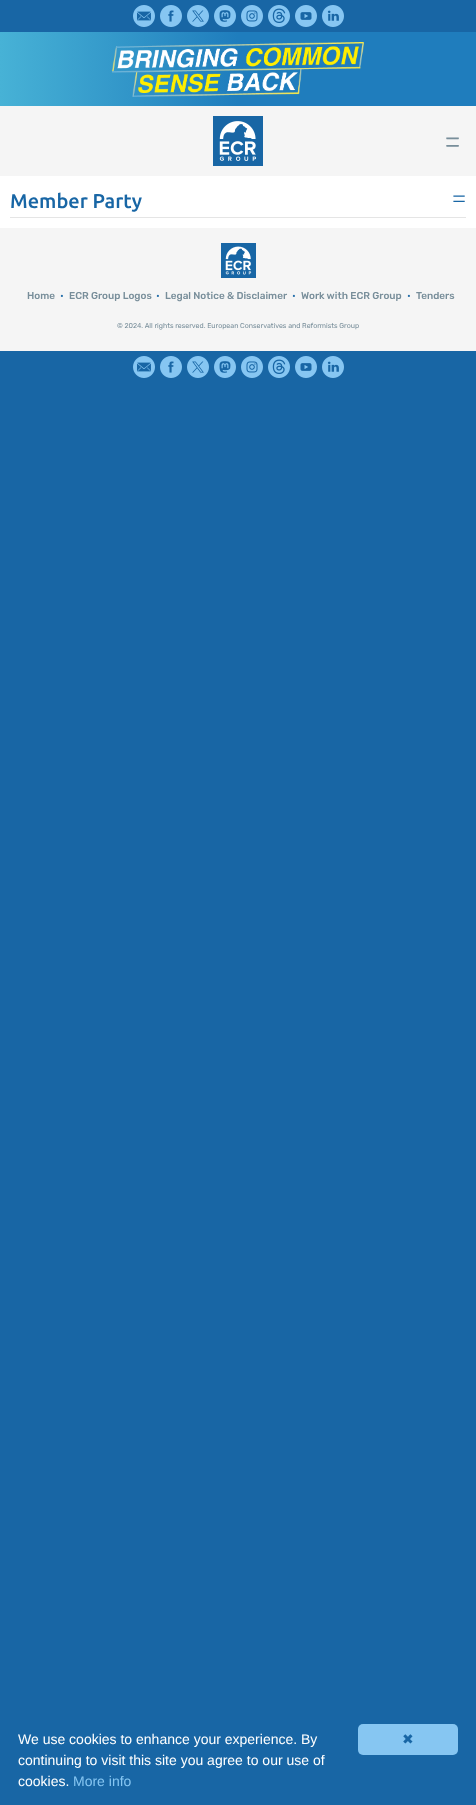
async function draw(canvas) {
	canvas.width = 476;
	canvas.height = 1805;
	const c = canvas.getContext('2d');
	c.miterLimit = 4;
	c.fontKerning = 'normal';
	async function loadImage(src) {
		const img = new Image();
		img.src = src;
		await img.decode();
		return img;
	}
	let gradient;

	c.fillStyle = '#1866a5';
	c.fillRect(0, 0, 476, 1805);
	c.drawImage(await loadImage('img1.png'), 133, 5, 22, 22);
	c.drawImage(await loadImage('img2.png'), 160, 5, 22, 22);
	c.drawImage(await loadImage('img3.png'), 187, 5, 22, 22);
	c.drawImage(await loadImage('img4.png'), 214, 5, 22, 22);
	c.drawImage(await loadImage('img5.png'), 241, 5, 22, 22);
	c.drawImage(await loadImage('img6.png'), 268, 5, 22, 22);
	c.drawImage(await loadImage('img7.png'), 295, 5, 22, 22);
	c.drawImage(await loadImage('img8.png'), 322, 5, 22, 22);
	gradient = c.createLinearGradient(0, 69, 476, 69);
	gradient.addColorStop(0, '#47b2d6');
	gradient.addColorStop(0.5, '#1f7dbd');
	c.fillStyle = gradient;
	c.fillRect(0, 32, 476, 74);
	c.drawImage(await loadImage('img9.png'), 112, 42, 252, 55);
	c.fillStyle = '#f5f5f5';
	c.fillRect(0, 106, 476, 70);
	c.drawImage(await loadImage('img10.png'), 213, 116, 50, 50);
	c.font = '300 30px Rubik';
	c.fillStyle = '#788e9a';
	c.fillText('=', 444, 151);
	c.fillStyle = '#fff';
	c.fillRect(0, 176, 476, 52);
	c.font = '500 20px Ubuntu';
	c.fillStyle = '#1866a5';
	c.fillText('Member Party', 10, 208);
	c.font = '300 25px Ubuntu';
	c.fillText('=', 452, 206);
	c.fillStyle = '#e5e5e5';
	c.fillRect(10, 217, 456, 1);
	c.fillStyle = '#f5f5f5';
	c.fillRect(0, 228, 476, 123);
	c.drawImage(await loadImage('img11.png'), 221, 243, 35, 35);
	c.font = '500 10px Rubik';
	c.fillStyle = '#788e9a';
	c.fillText('Home', 27, 299);
	c.font = '10px Rubik';
	c.fillStyle = '#1866a5';
	c.fillText('•', 60, 299);
	c.font = '500 10px Rubik';
	c.fillStyle = '#788e9a';
	c.fillText('ECR Group Logos', 69, 299);
	c.font = '10px Rubik';
	c.fillStyle = '#1866a5';
	c.fillText('•', 156, 299);
	c.font = '500 10px Rubik';
	c.fillStyle = '#788e9a';
	c.fillText('Legal Notice & Disclaimer', 165, 299);
	c.font = '10px Rubik';
	c.fillStyle = '#1866a5';
	c.fillText('•', 292, 299);
	c.font = '500 10px Rubik';
	c.fillStyle = '#788e9a';
	c.fillText('Work with ECR Group', 301, 299);
	c.font = '10px Rubik';
	c.fillStyle = '#1866a5';
	c.fillText('•', 407, 299);
	c.font = '500 10px Rubik';
	c.fillStyle = '#788e9a';
	c.fillText('Tenders', 416, 299);
	c.font = '7px Rubik';
	c.fillText('© 2024. All rights reserved. European Conservatives and Reformists Group', 117, 328);
	c.drawImage(await loadImage('img1.png'), 133, 356, 22, 22);
	c.drawImage(await loadImage('img2.png'), 160, 356, 22, 22);
	c.drawImage(await loadImage('img3.png'), 187, 356, 22, 22);
	c.drawImage(await loadImage('img4.png'), 214, 356, 22, 22);
	c.drawImage(await loadImage('img5.png'), 241, 356, 22, 22);
	c.drawImage(await loadImage('img6.png'), 268, 356, 22, 22);
	c.drawImage(await loadImage('img7.png'), 295, 356, 22, 22);
	c.drawImage(await loadImage('img8.png'), 322, 356, 22, 22);
	c.font = '14px Liberation Sans';
	c.fillStyle = '#fff';
	for (const [text, x, y] of [
		['We use cookies to enhance your experience. By', 18, 1744],
		['continuing to visit this site you agree to our use of', 18, 1765],
		['cookies.', 18, 1786],
	]) {
		c.fillText(text, x, y);
	}
	c.fillStyle = '#86c6f2';
	c.fillText('More info', 73, 1786);
	c.beginPath();
	c.roundRect(358, 1724, 100, 31, 5);
	c.fill();
	c.font = '14px DejaVu Sans';
	c.fillStyle = '#1866a5';
	c.fillText('✖', 402, 1744);
}

draw(document.querySelector('canvas'));
